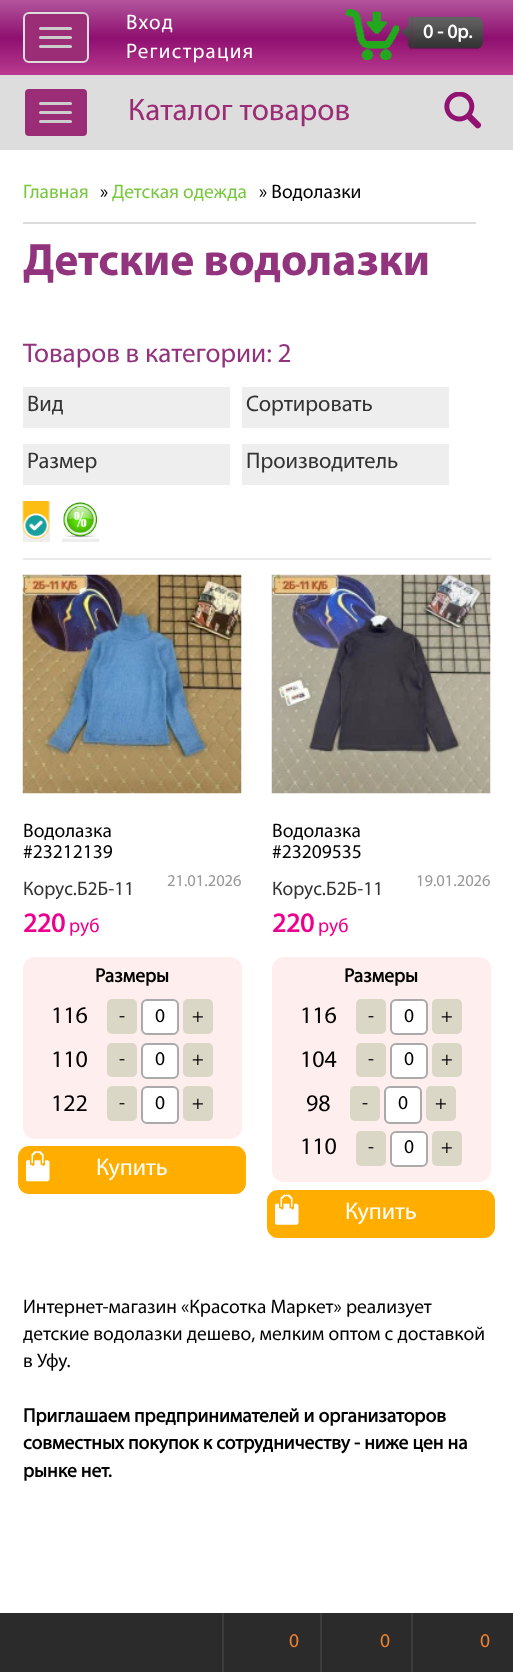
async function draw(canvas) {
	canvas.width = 513;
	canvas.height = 1672;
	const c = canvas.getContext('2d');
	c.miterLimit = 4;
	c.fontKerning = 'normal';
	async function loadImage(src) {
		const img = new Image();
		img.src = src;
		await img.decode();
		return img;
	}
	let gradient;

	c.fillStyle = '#fff';
	c.fillRect(0, 0, 513, 1672);
	gradient = c.createLinearGradient(257, 0, 257, 75);
	gradient.addColorStop(0, '#b2559c');
	gradient.addColorStop(0.51, '#8e0f6f');
	gradient.addColorStop(1, '#ba3b8f');
	c.fillStyle = gradient;
	c.fillRect(0, 0, 513, 75);
	c.fillStyle = '#9b2d76';
	c.beginPath();
	c.roundRect(24, 13, 64, 49, 5);
	c.fill();
	c.strokeStyle = '#ddd';
	c.lineWidth = 2;
	c.stroke();
	c.fillStyle = '#ccc';
	c.beginPath();
	c.roundRect(39, 27, 33, 3, 1.5);
	c.fill();
	c.beginPath();
	c.roundRect(39, 36, 33, 3, 1.5);
	c.fill();
	c.beginPath();
	c.roundRect(39, 45, 33, 3, 1.5);
	c.fill();
	c.letterSpacing = '1.25px';
	c.font = '21px Myriad';
	c.fillStyle = '#fff';
	c.fillText('Вход', 126, 29);
	c.fillText('Регистрация', 126, 58);
	c.drawImage(await loadImage('img1.png'), 345, 9, 68, 51);
	c.drawImage(await loadImage('img2.png'), 412, 16, 71, 34);
	c.letterSpacing = '0px';
	c.font = 'bold 19.5px Myriad';
	c.fillText('0 - 0р.', 423, 38);
	c.fillStyle = '#ddd';
	c.fillRect(0, 75, 513, 75);
	c.drawImage(await loadImage('img3.png'), 444, 92, 38, 37);
	c.fillStyle = '#9b2d76';
	c.beginPath();
	c.roundRect(24, 88, 64, 49, 5);
	c.fill();
	c.stroke();
	c.fillStyle = '#ccc';
	c.beginPath();
	c.roundRect(39, 102, 33, 3, 1.5);
	c.fill();
	c.beginPath();
	c.roundRect(39, 111, 33, 3, 1.5);
	c.fill();
	c.beginPath();
	c.roundRect(39, 120, 33, 3, 1.5);
	c.fill();
	c.font = '31.25px Myriad';
	c.fillStyle = '#9b2d76';
	c.fillText('Каталог товаров', 128, 120);
	c.fillStyle = '#eaeaea';
	c.fillRect(23, 558, 468, 2);
	c.fillStyle = '#ddd';
	c.fillRect(23, 222, 453, 2);
	c.font = '19.5px Myriad';
	c.fillStyle = '#77c83f';
	c.fillText('Главная', 23, 198);
	c.fillStyle = '#000';
	c.fillText('»', 100, 198);
	c.fillStyle = '#77c83f';
	c.fillText('Детская одежда', 112, 198);
	c.fillStyle = '#000';
	c.fillText('» Водолазки', 259, 198);
	c.font = 'bold 45.6px "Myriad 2"';
	c.fillStyle = '#91337d';
	c.fillText('Детские водолазки', 23, 275);
	c.font = '27.25px Myriad';
	c.fillText('Товаров в категории: 2', 23, 362);
	c.fillStyle = '#eee';
	c.fillRect(23, 387, 207, 41);
	c.font = '22.5px Myriad';
	c.fillStyle = '#333';
	c.fillText('Вид', 27, 411);
	c.fillStyle = '#eee';
	c.fillRect(242, 387, 207, 41);
	c.fillStyle = '#333';
	c.fillText('Сортировать', 246, 411);
	c.fillStyle = '#eee';
	c.fillRect(23, 444, 207, 41);
	c.fillStyle = '#333';
	c.fillText('Размер', 27, 468);
	c.fillStyle = '#eee';
	c.fillRect(242, 444, 207, 41);
	c.fillStyle = '#333';
	c.fillText('Производитель', 246, 468);
	c.fillStyle = '#eee';
	c.fillRect(23, 501, 27, 41);
	c.drawImage(await loadImage('img4.png'), 22, 501, 28, 38);
	c.fillRect(62, 538, 37, 4);
	c.drawImage(await loadImage('img5.png'), 62, 501, 37, 38);
	c.drawImage(await loadImage('img6.png'), 22, 574, 220, 220);
	c.font = '19.5px Myriad';
	c.fillStyle = '#000';
	c.fillText('Водолазка', 23, 837);
	c.fillText('#23212139', 23, 858);
	c.fillStyle = '#333';
	c.fillText('Корус.Б2Б-11', 23, 895);
	c.font = '16.5px Myriad';
	c.fillStyle = '#999';
	c.fillText('21.01.2026', 167, 886);
	c.font = 'bold 27.25px Myriad';
	c.fillStyle = '#ed008e';
	c.fillText('220', 23, 932);
	c.font = '19.5px Myriad';
	c.fillText('руб', 69, 932);
	c.fillStyle = '#fee';
	c.beginPath();
	c.roundRect(23, 957, 219, 182, 12);
	c.fill();
	c.font = 'bold 19.5px Myriad';
	c.fillStyle = '#000';
	c.fillText('Размеры', 95, 982);
	c.font = '24px Myriad';
	c.fillText('116', 51, 1023);
	c.fillStyle = '#dbd7c7';
	c.beginPath();
	c.roundRect(107, 999, 30, 35, 5);
	c.fill();
	c.font = '19.5px Myriad';
	c.fillStyle = '#000';
	c.fillText('-', 119, 1022);
	c.fillStyle = '#fff';
	c.beginPath();
	c.roundRect(142, 1000, 36, 34, 5);
	c.fill();
	c.strokeStyle = '#aaa';
	c.stroke();
	c.fillStyle = '#000';
	c.fillText('0', 155, 1022);
	c.fillStyle = '#dbd7c7';
	c.beginPath();
	c.roundRect(183, 999, 30, 35, 5);
	c.fill();
	c.fillStyle = '#000';
	c.fillText('+', 192, 1022);
	c.font = '24px Myriad';
	c.fillText('110', 51, 1067);
	c.fillStyle = '#dbd7c7';
	c.beginPath();
	c.roundRect(107, 1043, 30, 34, 5);
	c.fill();
	c.font = '19.5px Myriad';
	c.fillStyle = '#000';
	c.fillText('-', 119, 1065);
	c.fillStyle = '#fff';
	c.beginPath();
	c.roundRect(142, 1044, 36, 34, 5);
	c.fill();
	c.stroke();
	c.fillStyle = '#000';
	c.fillText('0', 155, 1065);
	c.fillStyle = '#dbd7c7';
	c.beginPath();
	c.roundRect(183, 1043, 30, 34, 5);
	c.fill();
	c.fillStyle = '#000';
	c.fillText('+', 192, 1065);
	c.font = '24px Myriad';
	c.fillText('122', 51, 1111);
	c.fillStyle = '#dbd7c7';
	c.beginPath();
	c.roundRect(107, 1086, 30, 35, 5);
	c.fill();
	c.font = '19.5px Myriad';
	c.fillStyle = '#000';
	c.fillText('-', 119, 1109);
	c.fillStyle = '#fff';
	c.beginPath();
	c.roundRect(142, 1087, 36, 36, 5);
	c.fill();
	c.stroke();
	c.fillStyle = '#000';
	c.fillText('0', 155, 1109);
	c.fillStyle = '#dbd7c7';
	c.beginPath();
	c.roundRect(183, 1086, 30, 35, 5);
	c.fill();
	c.fillStyle = '#000';
	c.fillText('+', 192, 1109);
	c.fillStyle = '#ffae00';
	c.beginPath();
	c.roundRect(18, 1146, 228, 48, 11);
	c.fill();
	c.drawImage(await loadImage('img7.png'), 26, 1151, 24, 31);
	c.font = '24px Myriad';
	c.fillStyle = '#fff';
	c.fillText('Купить', 96, 1175);
	c.drawImage(await loadImage('img8.png'), 271, 574, 220, 220);
	c.font = '19.5px Myriad';
	c.fillStyle = '#000';
	c.fillText('Водолазка', 272, 837);
	c.fillText('#23209535', 272, 858);
	c.fillStyle = '#333';
	c.fillText('Корус.Б2Б-11', 272, 895);
	c.font = '16.5px Myriad';
	c.fillStyle = '#999';
	c.fillText('19.01.2026', 416, 886);
	c.font = 'bold 27.25px Myriad';
	c.fillStyle = '#ed008e';
	c.fillText('220', 272, 932);
	c.font = '19.5px Myriad';
	c.fillText('руб', 318, 932);
	c.fillStyle = '#fee';
	c.beginPath();
	c.roundRect(272, 957, 219, 225, 12);
	c.fill();
	c.font = 'bold 19.5px Myriad';
	c.fillStyle = '#000';
	c.fillText('Размеры', 344, 982);
	c.font = '24px Myriad';
	c.fillText('116', 300, 1023);
	c.fillStyle = '#dbd7c7';
	c.beginPath();
	c.roundRect(356, 999, 30, 35, 5);
	c.fill();
	c.font = '19.5px Myriad';
	c.fillStyle = '#000';
	c.fillText('-', 368, 1022);
	c.fillStyle = '#fff';
	c.beginPath();
	c.roundRect(391, 1000, 36, 34, 5);
	c.fill();
	c.stroke();
	c.fillStyle = '#000';
	c.fillText('0', 404, 1022);
	c.fillStyle = '#dbd7c7';
	c.beginPath();
	c.roundRect(432, 999, 30, 35, 5);
	c.fill();
	c.fillStyle = '#000';
	c.fillText('+', 441, 1022);
	c.font = '24px Myriad';
	c.fillText('104', 300, 1067);
	c.fillStyle = '#dbd7c7';
	c.beginPath();
	c.roundRect(356, 1043, 30, 34, 5);
	c.fill();
	c.font = '19.5px Myriad';
	c.fillStyle = '#000';
	c.fillText('-', 368, 1065);
	c.fillStyle = '#fff';
	c.beginPath();
	c.roundRect(391, 1044, 36, 34, 5);
	c.fill();
	c.stroke();
	c.fillStyle = '#000';
	c.fillText('0', 404, 1065);
	c.fillStyle = '#dbd7c7';
	c.beginPath();
	c.roundRect(432, 1043, 30, 34, 5);
	c.fill();
	c.fillStyle = '#000';
	c.fillText('+', 441, 1065);
	c.font = '24px Myriad';
	c.fillText('98', 306, 1111);
	c.fillStyle = '#dbd7c7';
	c.beginPath();
	c.roundRect(350, 1086, 30, 35, 5);
	c.fill();
	c.font = '19.5px Myriad';
	c.fillStyle = '#000';
	c.fillText('-', 362, 1109);
	c.fillStyle = '#fff';
	c.beginPath();
	c.roundRect(385, 1087, 36, 36, 5);
	c.fill();
	c.stroke();
	c.fillStyle = '#000';
	c.fillText('0', 398, 1109);
	c.fillStyle = '#dbd7c7';
	c.beginPath();
	c.roundRect(426, 1086, 30, 35, 5);
	c.fill();
	c.fillStyle = '#000';
	c.fillText('+', 435, 1109);
	c.font = '24px Myriad';
	c.fillText('110', 300, 1154);
	c.fillStyle = '#dbd7c7';
	c.beginPath();
	c.roundRect(356, 1131, 30, 35, 5);
	c.fill();
	c.font = '19.5px Myriad';
	c.fillStyle = '#000';
	c.fillText('-', 368, 1153);
	c.fillStyle = '#fff';
	c.beginPath();
	c.roundRect(391, 1132, 36, 34, 5);
	c.fill();
	c.stroke();
	c.fillStyle = '#000';
	c.fillText('0', 404, 1153);
	c.fillStyle = '#dbd7c7';
	c.beginPath();
	c.roundRect(432, 1131, 30, 35, 5);
	c.fill();
	c.fillStyle = '#000';
	c.fillText('+', 441, 1153);
	c.fillStyle = '#ffae00';
	c.beginPath();
	c.roundRect(267, 1190, 228, 48, 11);
	c.fill();
	c.drawImage(await loadImage('img9.png'), 275, 1194, 24, 31);
	c.font = '24px Myriad';
	c.fillStyle = '#fff';
	c.fillText('Купить', 345, 1219);
	c.font = '19.5px Myriad';
	c.fillStyle = '#000';
	for (const [text, x, y] of [
		['Интернет-магазин «Красотка Маркет» реализует', 23, 1313],
		['детские водолазки дешево, мелким оптом с доставкой', 23, 1340],
		['в Уфу.', 23, 1367],
	]) {
		c.fillText(text, x, y);
	}
	c.font = 'bold 19.5px Myriad';
	for (const [text, x, y] of [
		['Приглашаем предпринимателей и организаторов', 23, 1422],
		['совместных покупок к сотрудничеству - ниже цен на', 23, 1449],
		['рынке нет.', 23, 1477],
	]) {
		c.fillText(text, x, y);
	}
	c.fillStyle = '#2b2b2b';
	c.fillRect(0, 1613, 513, 59);
	c.fillStyle = '#3c3c3c';
	c.fillRect(222, 1613, 2, 59);
	c.font = '19.5px Myriad';
	c.fillStyle = '#ee8131';
	c.fillText('0', 289, 1647);
	c.fillStyle = '#3c3c3c';
	c.fillRect(320, 1613, 2, 59);
	c.fillStyle = '#ee8131';
	c.fillText('0', 380, 1647);
	c.fillStyle = '#3c3c3c';
	c.fillRect(411, 1613, 2, 59);
	c.fillStyle = '#ee8131';
	c.fillText('0', 480, 1647);
}

draw(document.querySelector('canvas'));
